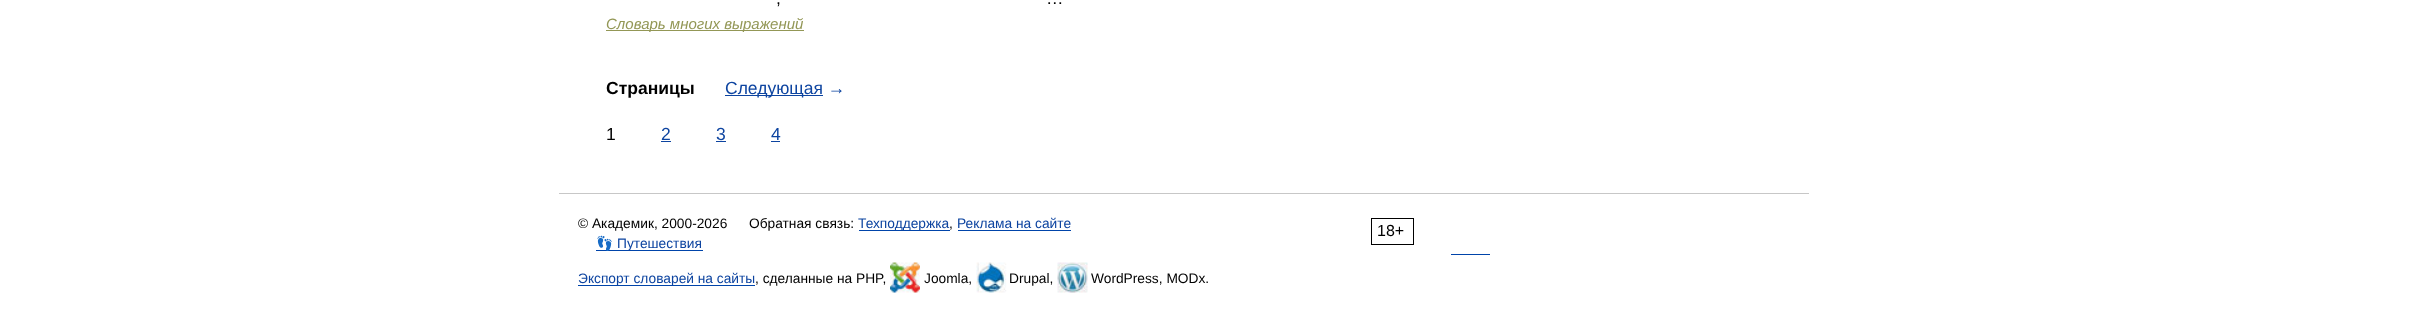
async function draw(canvas) {
	canvas.width = 2429;
	canvas.height = 325;
	const c = canvas.getContext('2d');
	c.miterLimit = 4;
	c.fontKerning = 'normal';
	async function loadImage(src) {
		const img = new Image();
		img.src = src;
		await img.decode();
		return img;
	}

	c.fillStyle = '#fff';
	c.fillRect(0, 0, 2429, 325);
	c.font = '17.5px Liberation Sans';
	c.fillStyle = '#000';
	c.fillText(',', 776, 4);
	c.fillText('…', 1046, 4);
	c.fillStyle = '#939756';
	c.fillRect(606, 30, 198, 1);
	c.font = 'italic 15px Liberation Sans';
	c.fillText('Словарь многих выражений', 606, 29);
	c.font = 'bold 17.5px Liberation Sans';
	c.fillStyle = '#000';
	c.fillText('Страницы', 606, 94);
	c.fillStyle = '#0d44a0';
	c.fillRect(725, 95, 98, 1);
	c.font = '17.5px Liberation Sans';
	c.fillText('Следующая →', 725, 94);
	c.fillStyle = '#000';
	c.fillText('1', 606, 140);
	c.fillStyle = '#0d44a0';
	c.fillText('2', 661, 140);
	c.fillRect(661, 141, 10, 1);
	c.fillText('3', 716, 140);
	c.fillRect(716, 141, 10, 1);
	c.fillText('4', 771, 140);
	c.fillRect(771, 141, 9, 1);
	c.fillStyle = '#c7c7c7';
	c.fillRect(559, 193, 1250, 1);
	c.font = '13.75px Liberation Sans';
	c.fillStyle = '#000';
	c.fillText('© Академик, 2000-2026', 578, 228);
	c.fillText('Обратная связь:', 749, 228);
	c.fillStyle = '#04a';
	c.fillRect(859, 230, 91, 1);
	c.fillStyle = '#0d44a0';
	c.fillText('Техподдержка', 858, 228);
	c.fillStyle = '#000';
	c.fillText(',', 949, 228);
	c.fillStyle = '#04a';
	c.fillRect(958, 230, 113, 1);
	c.fillStyle = '#0d44a0';
	c.fillText('Реклама на сайте', 957, 228);
	c.strokeStyle = '#000';
	c.strokeRect(1371.5, 218.5, 42, 26);
	c.font = '16px Liberation Sans';
	c.fillStyle = '#000';
	c.fillText('18+', 1377, 236);
	c.fillStyle = '#04a';
	c.fillRect(596, 250, 107, 1);
	c.font = '13.75px Noto Color Emoji';
	c.fillStyle = '#0d44a0';
	c.fillText('👣', 596, 248);
	c.font = '13.75px Liberation Sans';
	c.fillText('Путешествия', 617, 248);
	c.fillStyle = '#04a';
	c.fillRect(1451, 254, 39, 1);
	c.fillRect(578, 285, 177, 1);
	c.fillStyle = '#0d44a0';
	c.fillText('Экспорт словарей на сайты', 578, 283);
	c.fillStyle = '#000';
	c.fillText(', сделанные на PHP,', 755, 283);
	c.drawImage(await loadImage('img1.png'), 890, 262, 30, 31);
	c.fillText('Joomla,', 924, 283);
	c.drawImage(await loadImage('img2.png'), 976, 262, 31, 31);
	c.fillText('Drupal,', 1009, 283);
	c.drawImage(await loadImage('img3.png'), 1057, 262, 31, 31);
	c.fillText('WordPress, MODx.', 1091, 283);
}

draw(document.querySelector('canvas'));
